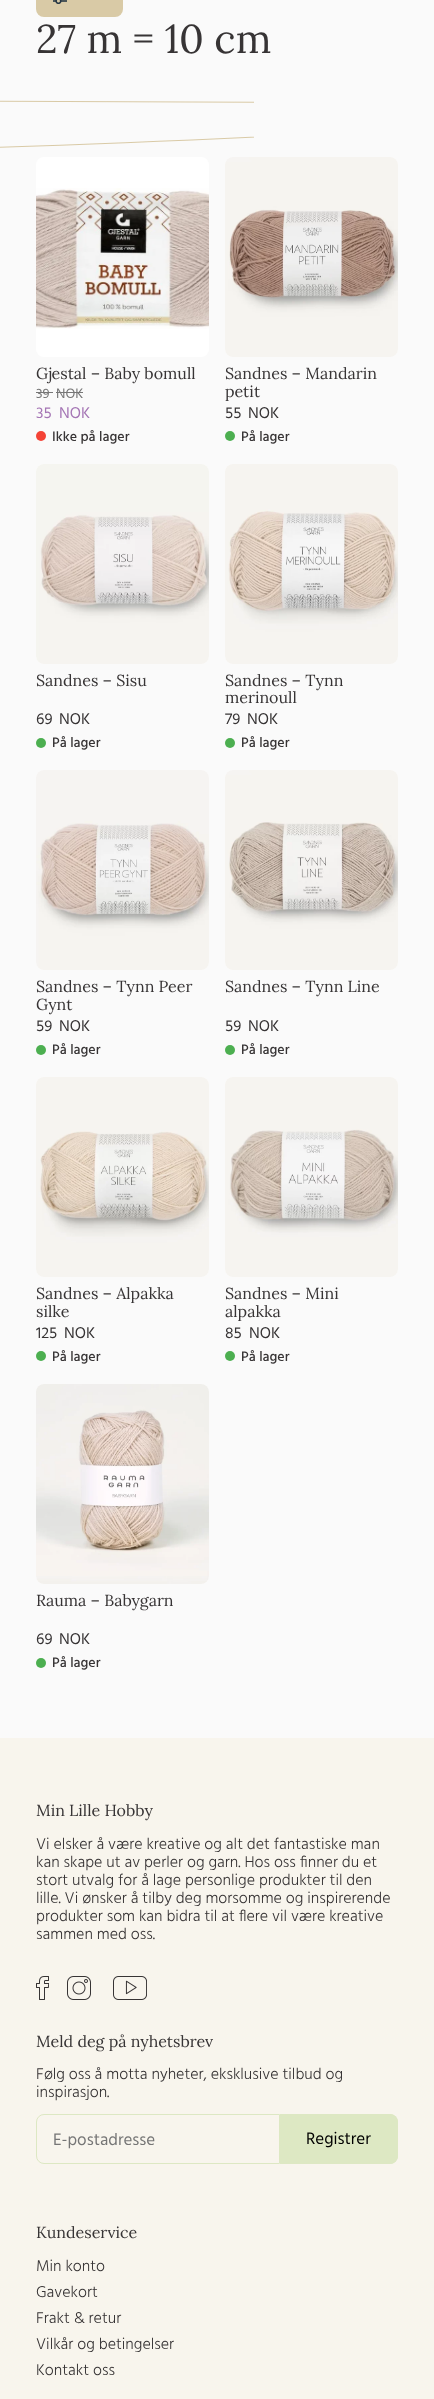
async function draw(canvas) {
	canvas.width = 434;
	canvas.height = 2399;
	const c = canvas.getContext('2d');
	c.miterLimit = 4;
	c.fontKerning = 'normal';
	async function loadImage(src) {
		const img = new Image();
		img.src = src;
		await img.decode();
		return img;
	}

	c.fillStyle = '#fafafa';
	c.fillRect(0, 0, 434, 2399);
	c.fillStyle = '#d9caa6';
	c.beginPath();
	c.roundRect(36, -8, 87, 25, 8);
	c.fill();
	c.drawImage(await loadImage('img1.png'), 53, 0, 14, 4);
	c.font = '40px Lora';
	c.fillStyle = '#373435';
	c.fillText('27 m = 10 cm', 36, 53);
	c.drawImage(await loadImage('img2.png'), 0, 100, 254, 48);
	c.fillStyle = '#fff';
	c.beginPath();
	c.roundRect(36, 157, 173, 200, 8);
	c.fill();
	c.drawImage(await loadImage('img3.png'), 36, 188, 173, 141);
	c.font = '16px Lora';
	c.fillStyle = '#373435';
	c.fillText('Gjestal – Baby bomull', 36, 379);
	c.font = '14px Hind';
	c.fillStyle = '#767676';
	c.fillText('39', 36, 398);
	c.fillRect(36, 392, 17, 1);
	c.fillText('NOK', 56, 398);
	c.fillRect(56, 392, 27, 1);
	c.font = '16px Hind';
	c.fillStyle = '#a576b5';
	c.fillText('35', 36, 418);
	c.fillText('NOK', 59, 418);
	c.fillStyle = '#f44336';
	c.beginPath();
	c.arc(41, 436, 5, 0, 2 * Math.PI);
	c.fill();
	c.font = '500 14px Hind';
	c.fillStyle = '#373435';
	c.fillText('Ikke på lager', 52, 441);
	c.fillStyle = '#fff';
	c.beginPath();
	c.roundRect(225, 157, 173, 200, 8);
	c.fill();
	c.drawImage(await loadImage('img4.png'), 225, 157, 173, 200);
	c.font = '16px Lora';
	c.fillStyle = '#373435';
	c.fillText('Sandnes – Mandarin', 225, 379);
	c.fillText('petit', 225, 397);
	c.font = '16px Hind';
	c.fillText('55', 225, 418);
	c.fillText('NOK', 248, 418);
	c.fillStyle = '#4caf50';
	c.beginPath();
	c.arc(230, 436, 5, 0, 2 * Math.PI);
	c.fill();
	c.font = '500 14px Hind';
	c.fillStyle = '#373435';
	c.fillText('På lager', 241, 441);
	c.fillStyle = '#fff';
	c.beginPath();
	c.roundRect(36, 464, 173, 200, 8);
	c.fill();
	c.drawImage(await loadImage('img5.png'), 36, 464, 173, 200);
	c.font = '16px Lora';
	c.fillStyle = '#373435';
	c.fillText('Sandnes – Sisu', 36, 686);
	c.font = '16px Hind';
	c.fillText('69', 36, 724);
	c.fillText('NOK', 59, 724);
	c.fillStyle = '#4caf50';
	c.beginPath();
	c.arc(41, 743, 5, 0, 2 * Math.PI);
	c.fill();
	c.font = '500 14px Hind';
	c.fillStyle = '#373435';
	c.fillText('På lager', 52, 747);
	c.fillStyle = '#fff';
	c.beginPath();
	c.roundRect(225, 464, 173, 200, 8);
	c.fill();
	c.drawImage(await loadImage('img6.png'), 225, 464, 173, 200);
	c.font = '16px Lora';
	c.fillStyle = '#373435';
	c.fillText('Sandnes – Tynn', 225, 686);
	c.fillText('merinoull', 225, 703);
	c.font = '16px Hind';
	c.fillText('79', 225, 724);
	c.fillText('NOK', 247, 724);
	c.fillStyle = '#4caf50';
	c.beginPath();
	c.arc(230, 743, 5, 0, 2 * Math.PI);
	c.fill();
	c.font = '500 14px Hind';
	c.fillStyle = '#373435';
	c.fillText('På lager', 241, 747);
	c.fillStyle = '#fff';
	c.beginPath();
	c.roundRect(36, 770, 173, 200, 8);
	c.fill();
	c.drawImage(await loadImage('img7.png'), 36, 770, 173, 200);
	c.font = '16px Lora';
	c.fillStyle = '#373435';
	c.fillText('Sandnes – Tynn Peer', 36, 992);
	c.fillText('Gynt', 36, 1010);
	c.font = '16px Hind';
	c.fillText('59', 36, 1031);
	c.fillText('NOK', 59, 1031);
	c.fillStyle = '#4caf50';
	c.beginPath();
	c.arc(41, 1050, 5, 0, 2 * Math.PI);
	c.fill();
	c.font = '500 14px Hind';
	c.fillStyle = '#373435';
	c.fillText('På lager', 52, 1054);
	c.fillStyle = '#fff';
	c.beginPath();
	c.roundRect(225, 770, 173, 200, 8);
	c.fill();
	c.drawImage(await loadImage('img8.png'), 225, 770, 173, 200);
	c.font = '16px Lora';
	c.fillStyle = '#373435';
	c.fillText('Sandnes – Tynn Line', 225, 992);
	c.font = '16px Hind';
	c.fillText('59', 225, 1031);
	c.fillText('NOK', 248, 1031);
	c.fillStyle = '#4caf50';
	c.beginPath();
	c.arc(230, 1050, 5, 0, 2 * Math.PI);
	c.fill();
	c.font = '500 14px Hind';
	c.fillStyle = '#373435';
	c.fillText('På lager', 241, 1054);
	c.fillStyle = '#fff';
	c.beginPath();
	c.roundRect(36, 1077, 173, 200, 8);
	c.fill();
	c.drawImage(await loadImage('img9.png'), 36, 1077, 173, 200);
	c.font = '16px Lora';
	c.fillStyle = '#373435';
	c.fillText('Sandnes – Alpakka', 36, 1299);
	c.fillText('silke', 36, 1317);
	c.font = '16px Hind';
	c.fillText('125', 36, 1338);
	c.fillText('NOK', 64, 1338);
	c.fillStyle = '#4caf50';
	c.beginPath();
	c.arc(41, 1356, 5, 0, 2 * Math.PI);
	c.fill();
	c.font = '500 14px Hind';
	c.fillStyle = '#373435';
	c.fillText('På lager', 52, 1361);
	c.fillStyle = '#fff';
	c.beginPath();
	c.roundRect(225, 1077, 173, 200, 8);
	c.fill();
	c.drawImage(await loadImage('img10.png'), 225, 1077, 173, 200);
	c.font = '16px Lora';
	c.fillStyle = '#373435';
	c.fillText('Sandnes – Mini', 225, 1299);
	c.fillText('alpakka', 225, 1317);
	c.font = '16px Hind';
	c.fillText('85', 225, 1338);
	c.fillText('NOK', 249, 1338);
	c.fillStyle = '#4caf50';
	c.beginPath();
	c.arc(230, 1356, 5, 0, 2 * Math.PI);
	c.fill();
	c.font = '500 14px Hind';
	c.fillStyle = '#373435';
	c.fillText('På lager', 241, 1361);
	c.fillStyle = '#fff';
	c.beginPath();
	c.roundRect(36, 1384, 173, 200, 8);
	c.fill();
	c.drawImage(await loadImage('img11.png'), 36, 1384, 173, 200);
	c.font = '16px Lora';
	c.fillStyle = '#373435';
	c.fillText('Rauma – Babygarn', 36, 1606);
	c.font = '16px Hind';
	c.fillText('69', 36, 1644);
	c.fillText('NOK', 59, 1644);
	c.fillStyle = '#4caf50';
	c.beginPath();
	c.arc(41, 1663, 5, 0, 2 * Math.PI);
	c.fill();
	c.font = '500 14px Hind';
	c.fillStyle = '#373435';
	c.fillText('På lager', 52, 1667);
	c.fillStyle = '#f8f5ed';
	c.fillRect(0, 1738, 434, 661);
	c.font = '16px Lora';
	c.fillStyle = '#373435';
	c.fillText('Min Lille Hobby', 36, 1816);
	c.font = '300 16px Hind';
	for (const [text, x, y] of [
		['Vi elsker å være kreative og alt det fantastiske man', 36, 1849],
		['kan skape ut av perler og garn. Hos oss finner du et', 36, 1867],
		['stort utvalg for å lage personlige produkter til den', 36, 1885],
		['lille. Vi ønsker å tilby deg morsomme og inspirerende', 36, 1903],
		['produkter som kan bidra til at flere vil være kreative', 36, 1921],
		['sammen med oss.', 36, 1939],
	]) {
		c.fillText(text, x, y);
	}
	c.drawImage(await loadImage('img12.png'), 36, 1976, 13, 24);
	c.drawImage(await loadImage('img13.png'), 67, 1976, 24, 24);
	c.drawImage(await loadImage('img14.png'), 113, 1976, 34, 24);
	c.font = '16px Lora';
	c.fillText('Meld deg på nyhetsbrev', 36, 2047);
	c.font = '300 16px Hind';
	c.fillText('Følg oss å motta nyheter, eksklusive tilbud og', 36, 2079);
	c.fillText('inspirasjon.', 36, 2097);
	c.beginPath();
	c.roundRect(36.5, 2114.5, 243, 49, [7.5, 0, 0, 7.5]);
	c.strokeStyle = '#dde8c3';
	c.stroke();
	c.font = '17px Hind';
	c.fillStyle = '#767676';
	c.fillText('E-postadresse', 53, 2145);
	c.fillStyle = '#dde8c3';
	c.beginPath();
	c.roundRect(280, 2114, 118, 50, [0, 8, 8, 0]);
	c.fill();
	c.beginPath();
	c.moveTo(280, 2114);
	c.lineTo(390, 2114);
	c.bezierCurveTo(394, 2114, 398, 2118, 398, 2122);
	c.lineTo(398, 2156);
	c.bezierCurveTo(398, 2160, 394, 2164, 390, 2164);
	c.lineTo(280, 2164);
	c.closePath();
	c.moveTo(280, 2115);
	c.lineTo(390, 2115);
	c.bezierCurveTo(394, 2115, 397, 2118, 397, 2122);
	c.lineTo(397, 2156);
	c.bezierCurveTo(397, 2160, 394, 2163, 390, 2163);
	c.lineTo(280, 2163);
	c.closePath();
	c.fill('evenodd');
	c.fillStyle = '#000';
	c.fillText('Registrer', 306, 2144);
	c.font = '16px Lora';
	c.fillStyle = '#373435';
	c.fillText('Kundeservice', 36, 2238);
	c.font = '300 16px Hind';
	for (const [text, x, y] of [
		['Min konto', 36, 2271],
		['Gavekort', 36, 2297],
		['Frakt & retur', 36, 2323],
		['Vilkår og betingelser', 36, 2349],
		['Kontakt oss', 36, 2375],
	]) {
		c.fillText(text, x, y);
	}
}

draw(document.querySelector('canvas'));
